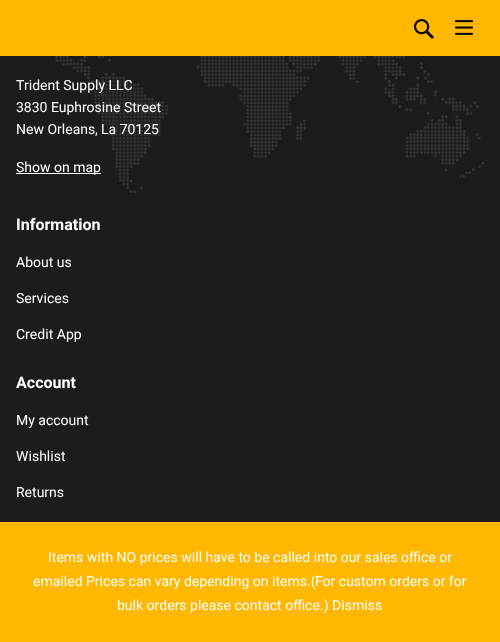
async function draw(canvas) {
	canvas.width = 500;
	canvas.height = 642;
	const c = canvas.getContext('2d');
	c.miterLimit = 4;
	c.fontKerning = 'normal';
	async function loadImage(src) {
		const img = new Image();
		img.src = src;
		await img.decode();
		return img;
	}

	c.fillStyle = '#1c1c1e';
	c.fillRect(0, 0, 500, 642);
	c.fillStyle = '#ffb700';
	c.fillRect(0, 0, 500, 56);
	c.drawImage(await loadImage('img1.png'), 414, 19, 20, 20);
	c.drawImage(await loadImage('img2.png'), 455, 20, 18, 15);
	c.drawImage(await loadImage('img3.png'), 38, 56, 446, 137);
	c.font = '14px Heebo';
	c.fillStyle = '#fff';
	for (const [text, x, y] of [
		['Trident Supply LLC', 16, 90],
		['3830 Euphrosine Street', 16, 112],
		['New Orleans', 16, 134],
	]) {
		c.fillText(text, x, y);
	}
	c.font = '14px "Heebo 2"';
	c.fillText(',', 95, 134);
	c.font = '14px Heebo';
	c.fillText('La 70125', 101, 134);
	c.fillRect(16, 173, 85, 1);
	c.fillText('Show on map', 16, 172);
	c.font = 'bold 16px Heebo';
	c.fillText('Information', 16, 230);
	c.font = '14px Heebo';
	for (const [text, x, y] of [
		['About us', 16, 267],
		['Services', 16, 303],
		['Credit App', 16, 339],
	]) {
		c.fillText(text, x, y);
	}
	c.font = 'bold 16px Heebo';
	c.fillText('Account', 16, 388);
	c.font = '14px Heebo';
	for (const [text, x, y] of [
		['My account', 16, 425],
		['Wishlist', 16, 461],
		['Returns', 16, 497],
	]) {
		c.fillText(text, x, y);
	}
	c.fillStyle = '#ffb700';
	c.fillRect(0, 522, 500, 120);
	c.fillStyle = '#fff';
	c.fillText('Items with NO prices will have to be called into our sales office or', 48, 562);
	c.fillText('emailed Prices can vary depending on items', 33, 586);
	c.font = '14px "Heebo 2"';
	c.fillText('.(', 307, 586);
	c.font = '14px Heebo';
	c.fillText('For custom orders or for', 315, 586);
	c.fillText('bulk orders please contact office', 117, 610);
	c.font = '14px "Heebo 2"';
	c.fillText('.)', 320, 610);
	c.font = '14px Heebo';
	c.fillText('Dismiss', 332, 610);
}

draw(document.querySelector('canvas'));
